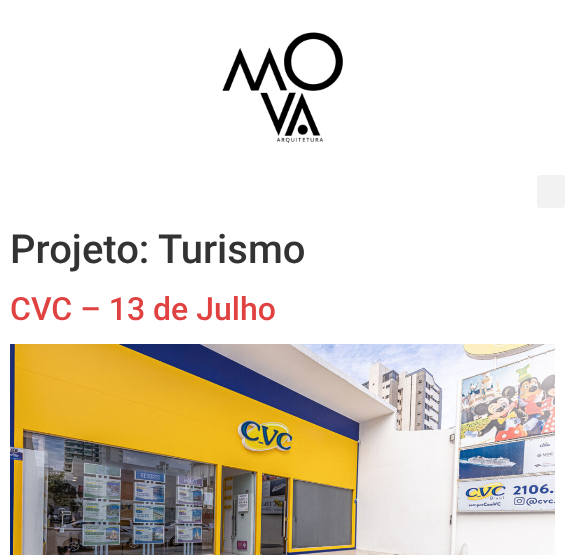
async function draw(canvas) {
	canvas.width = 565;
	canvas.height = 555;
	const c = canvas.getContext('2d');
	c.miterLimit = 4;
	c.fontKerning = 'normal';
	async function loadImage(src) {
		const img = new Image();
		img.src = src;
		await img.decode();
		return img;
	}

	c.fillStyle = '#fff';
	c.fillRect(0, 0, 565, 555);
	c.drawImage(await loadImage('img1.png'), 222, 32, 121, 111);
	c.fillStyle = '#f2f2f2';
	c.beginPath();
	c.roundRect(537, 175, 28, 33, 3);
	c.fill();
	c.font = '500 40px Roboto';
	c.fillStyle = '#333';
	c.fillText('Projeto:', 10, 263);
	c.fillText('Turismo', 158, 263);
	c.font = '500 32px Roboto';
	c.fillStyle = '#e04241';
	c.fillText('CVC – 13 de Julho', 10, 320);
	c.drawImage(await loadImage('img2.png'), 10, 344, 545, 211);
}

draw(document.querySelector('canvas'));
